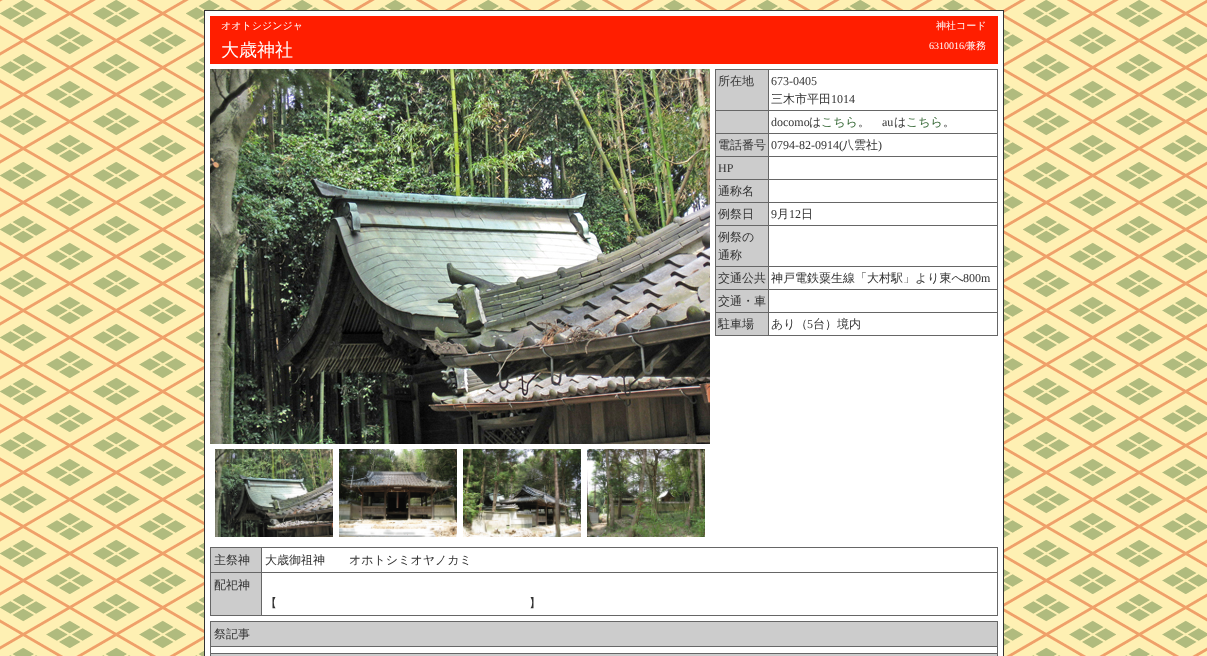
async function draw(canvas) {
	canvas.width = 1207;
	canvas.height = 656;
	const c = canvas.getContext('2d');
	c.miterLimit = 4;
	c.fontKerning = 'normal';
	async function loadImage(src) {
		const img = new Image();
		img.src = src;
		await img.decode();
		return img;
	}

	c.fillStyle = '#fff';
	c.fillRect(0, 0, 1207, 656);
	c.drawImage(await loadImage('img1.png'), 0, 0, 1207, 656);
	for (const [x, y, w, h, color] of [
		[204, 10, 800, 646, '#333'],
		[205, 11, 798, 645, '#fff'],
		[210, 16, 788, 48, '#ff1e00'],
	]) {
		c.fillStyle = color;
		c.fillRect(x, y, w, h);
	}
	c.font = '500 10px WenQuanYi Zen Hei';
	c.fillStyle = '#fff';
	c.fillText('オオトシジンジャ', 221, 29);
	c.fillText('神社コード', 936, 29);
	c.font = '500 18px WenQuanYi Zen Hei';
	c.fillText('大歳神社', 221, 56);
	c.font = '10px Liberation Serif';
	c.fillText('6310016/', 929, 49);
	c.font = '500 10px WenQuanYi Zen Hei';
	c.fillText('兼務', 966, 49);
	c.drawImage(await loadImage('img2.png'), 210, 69, 500, 375);
	c.drawImage(await loadImage('img3.png'), 215, 449, 118, 88);
	c.drawImage(await loadImage('img4.png'), 339, 449, 118, 88);
	c.drawImage(await loadImage('img5.png'), 463, 449, 118, 88);
	c.drawImage(await loadImage('img6.png'), 587, 449, 118, 88);
	c.fillStyle = '#666';
	c.fillRect(715, 69, 283, 267);
	c.fillStyle = '#ccc';
	c.fillRect(716, 70, 52, 40);
	c.font = '500 12px WenQuanYi Zen Hei';
	c.fillStyle = '#333';
	c.fillText('所在地', 718, 85);
	c.fillStyle = '#fff';
	c.fillRect(769, 70, 228, 40);
	c.font = '12px Liberation Serif';
	c.fillStyle = '#333';
	c.fillText('673-0405', 771, 85);
	c.font = '500 12px WenQuanYi Zen Hei';
	c.fillText('三木市平田', 771, 103);
	c.font = '12px Liberation Serif';
	c.fillText('1014', 831, 103);
	c.fillStyle = '#ccc';
	c.fillRect(716, 111, 52, 22);
	c.fillStyle = '#fff';
	c.fillRect(769, 111, 228, 22);
	c.fillStyle = '#333';
	c.fillText('docomo', 771, 126);
	c.font = '500 12px WenQuanYi Zen Hei';
	c.fillText('は', 809, 126);
	c.fillStyle = '#363';
	c.fillText('こちら', 821, 126);
	c.fillStyle = '#333';
	c.fillText('。', 858, 126);
	c.font = '12px Liberation Serif';
	c.fillText('au', 882, 126);
	c.font = '500 12px WenQuanYi Zen Hei';
	c.fillText('は', 894, 126);
	c.fillStyle = '#363';
	c.fillText('こちら', 906, 126);
	c.fillStyle = '#333';
	c.fillText('。', 943, 126);
	c.fillStyle = '#ccc';
	c.fillRect(716, 134, 52, 22);
	c.fillStyle = '#333';
	c.fillText('電話番号', 718, 149);
	c.fillStyle = '#fff';
	c.fillRect(769, 134, 228, 22);
	c.font = '12px Liberation Serif';
	c.fillStyle = '#333';
	c.fillText('0794-82-0914(', 771, 149);
	c.font = '500 12px WenQuanYi Zen Hei';
	c.fillText('八雲社', 842, 149);
	c.font = '12px Liberation Serif';
	c.fillText(')', 878, 149);
	c.fillStyle = '#ccc';
	c.fillRect(716, 157, 52, 22);
	c.fillStyle = '#333';
	c.fillText('HP', 718, 172);
	c.fillStyle = '#fff';
	c.fillRect(769, 157, 228, 22);
	c.fillStyle = '#ccc';
	c.fillRect(716, 180, 52, 22);
	c.font = '500 12px WenQuanYi Zen Hei';
	c.fillStyle = '#333';
	c.fillText('通称名', 718, 195);
	c.fillStyle = '#fff';
	c.fillRect(769, 180, 228, 22);
	c.fillStyle = '#ccc';
	c.fillRect(716, 203, 52, 22);
	c.fillStyle = '#333';
	c.fillText('例祭日', 718, 218);
	c.fillStyle = '#fff';
	c.fillRect(769, 203, 228, 22);
	c.font = '12px Liberation Serif';
	c.fillStyle = '#333';
	c.fillText('9', 771, 218);
	c.font = '500 12px WenQuanYi Zen Hei';
	c.fillText('月', 777, 218);
	c.font = '12px Liberation Serif';
	c.fillText('12', 789, 218);
	c.font = '500 12px WenQuanYi Zen Hei';
	c.fillText('日', 801, 218);
	c.fillStyle = '#ccc';
	c.fillRect(716, 226, 52, 40);
	c.fillStyle = '#333';
	c.fillText('例祭の', 718, 241);
	c.fillText('通称', 718, 259);
	c.fillStyle = '#fff';
	c.fillRect(769, 226, 228, 40);
	c.fillStyle = '#ccc';
	c.fillRect(716, 267, 52, 22);
	c.fillStyle = '#333';
	c.fillText('交通公共', 718, 282);
	c.fillStyle = '#fff';
	c.fillRect(769, 267, 228, 22);
	c.fillStyle = '#333';
	c.fillText('神戸電鉄粟生線「大村駅」より東へ', 771, 282);
	c.font = '12px Liberation Serif';
	c.fillText('800m', 963, 282);
	c.fillStyle = '#ccc';
	c.fillRect(716, 290, 52, 22);
	c.font = '500 12px WenQuanYi Zen Hei';
	c.fillStyle = '#333';
	c.fillText('交通・車', 718, 305);
	c.fillStyle = '#fff';
	c.fillRect(769, 290, 228, 22);
	c.fillStyle = '#ccc';
	c.fillRect(716, 313, 52, 22);
	c.fillStyle = '#333';
	c.fillText('駐車場', 718, 328);
	c.fillStyle = '#fff';
	c.fillRect(769, 313, 228, 22);
	c.fillStyle = '#333';
	c.fillText('あり（', 771, 328);
	c.font = '12px Liberation Serif';
	c.fillText('5', 807, 328);
	c.font = '500 12px WenQuanYi Zen Hei';
	c.fillText('台）境内', 813, 328);
	c.fillStyle = '#666';
	c.fillRect(210, 547, 788, 69);
	c.fillStyle = '#ccc';
	c.fillRect(211, 548, 50, 24);
	c.fillStyle = '#333';
	c.fillText('主祭神', 214, 564);
	c.fillStyle = '#fff';
	c.fillRect(262, 548, 735, 24);
	c.fillStyle = '#333';
	c.fillText('大歳御祖神　　オホトシミオヤノカミ', 265, 564);
	c.fillStyle = '#ccc';
	c.fillRect(211, 573, 50, 42);
	c.fillStyle = '#333';
	c.fillText('配祀神', 214, 589);
	c.fillStyle = '#fff';
	c.fillRect(262, 573, 735, 42);
	c.fillStyle = '#333';
	c.fillText('【　　　　　　　　　　　　　　　　　　　　　】', 265, 607);
	c.fillStyle = '#666';
	c.fillRect(210, 621, 788, 35);
	c.fillStyle = '#ccc';
	c.fillRect(211, 622, 786, 24);
	c.fillStyle = '#333';
	c.fillText('祭記事', 214, 638);
	c.fillStyle = '#fff';
	c.fillRect(211, 647, 786, 6);
	c.fillStyle = '#ccc';
	c.fillRect(211, 654, 786, 2);
}

draw(document.querySelector('canvas'));
